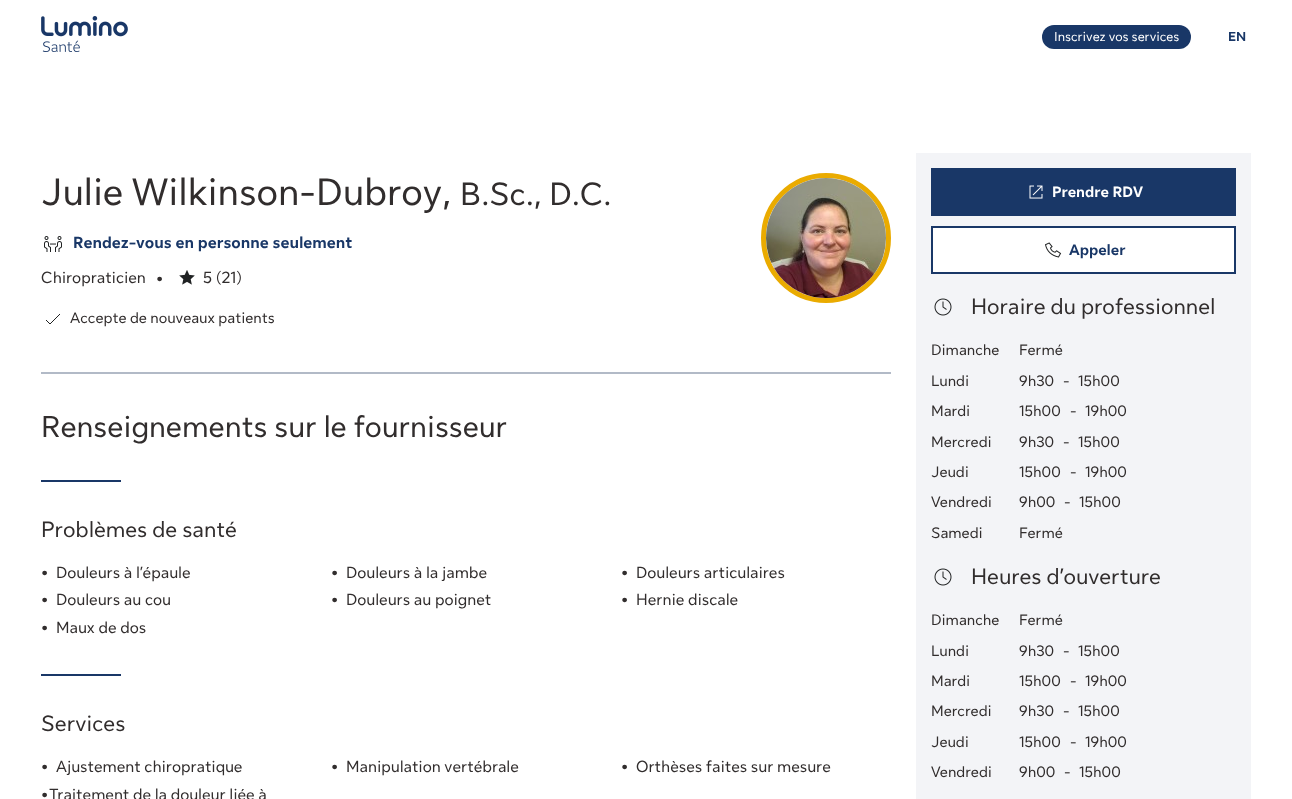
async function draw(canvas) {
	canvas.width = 1292;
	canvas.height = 799;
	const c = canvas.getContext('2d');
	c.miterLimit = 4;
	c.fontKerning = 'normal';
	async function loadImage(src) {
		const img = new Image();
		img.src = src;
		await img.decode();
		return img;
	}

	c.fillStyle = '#fff';
	c.fillRect(0, 0, 1292, 799);
	c.drawImage(await loadImage('img1.png'), 41, 16, 87, 36);
	c.fillStyle = '#193767';
	c.beginPath();
	c.roundRect(1042, 25, 149, 24, 12);
	c.fill();
	c.font = '13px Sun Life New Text';
	c.fillStyle = '#fff';
	c.fillText('Inscrivez vos services', 1054, 41);
	c.font = 'bold 13px Sun Life New Text';
	c.fillStyle = '#193767';
	c.fillText('EN', 1228, 41);
	c.fillStyle = '#b2bac7';
	c.fillRect(41, 372, 850, 2);
	c.font = '38px Sun Life New Text';
	c.fillStyle = '#312d2d';
	c.fillText('Julie Wilkinson-Dubroy,', 41, 205);
	c.font = '32px Sun Life New Text';
	c.fillText('B.Sc., D.C.', 460, 205);
	c.beginPath();
	c.arc(826, 238, 62.5, 0, 2 * Math.PI);
	c.strokeStyle = '#eaab00';
	c.lineWidth = 5;
	c.stroke();
	c.drawImage(await loadImage('img2.png'), 766, 178, 120, 120);
	c.drawImage(await loadImage('img3.png'), 44, 236, 18, 16);
	c.font = 'bold 16px Sun Life New Text';
	c.fillStyle = '#193767';
	c.fillText('Rendez-vous en personne seulement', 73, 248);
	c.font = '16px Sun Life New Text';
	c.fillStyle = '#312d2d';
	c.fillText('Chiropraticien', 41, 283);
	c.font = 'bold 22px Sun Life New Text';
	c.fillText('•', 156, 286);
	c.drawImage(await loadImage('img4.png'), 179, 270, 16, 15);
	c.font = '16px Sun Life New Text';
	c.fillText('5', 203, 283);
	c.fillText('(21)', 216, 283);
	c.beginPath();
	c.moveTo(46, 320);
	c.lineTo(50, 324);
	c.lineTo(60, 314);
	c.strokeStyle = '#202223';
	c.lineWidth = 1;
	c.stroke();
	c.font = '15px Sun Life New Text';
	c.fillText('Accepte de nouveaux patients', 70, 323);
	c.font = '30px Sun Life New Text';
	c.fillText('Renseignements sur le fournisseur', 41, 437);
	c.fillStyle = '#193767';
	c.fillRect(41, 480, 80, 2);
	c.font = '22px Sun Life New Text';
	c.fillStyle = '#312d2d';
	c.fillText('Problèmes de santé', 41, 537);
	c.font = 'bold 22px Sun Life New Text';
	c.fillText('•', 41, 580);
	c.font = '16px Sun Life New Text';
	c.fillText('Douleurs à l’épaule', 56, 578);
	c.font = 'bold 22px Sun Life New Text';
	c.fillText('•', 331, 580);
	c.font = '16px Sun Life New Text';
	c.fillText('Douleurs à la jambe', 346, 578);
	c.font = 'bold 22px Sun Life New Text';
	c.fillText('•', 621, 580);
	c.font = '16px Sun Life New Text';
	c.fillText('Douleurs articulaires', 636, 578);
	c.font = 'bold 22px Sun Life New Text';
	c.fillText('•', 41, 607);
	c.font = '16px Sun Life New Text';
	c.fillText('Douleurs au cou', 56, 605);
	c.font = 'bold 22px Sun Life New Text';
	c.fillText('•', 331, 607);
	c.font = '16px Sun Life New Text';
	c.fillText('Douleurs au poignet', 346, 605);
	c.font = 'bold 22px Sun Life New Text';
	c.fillText('•', 621, 607);
	c.font = '16px Sun Life New Text';
	c.fillText('Hernie discale', 636, 605);
	c.font = 'bold 22px Sun Life New Text';
	c.fillText('•', 41, 635);
	c.font = '16px Sun Life New Text';
	c.fillText('Maux de dos', 56, 633);
	c.fillStyle = '#193767';
	c.fillRect(41, 674, 80, 2);
	c.font = '22px Sun Life New Text';
	c.fillStyle = '#312d2d';
	c.fillText('Services', 41, 731);
	c.font = 'bold 22px Sun Life New Text';
	c.fillText('•', 41, 774);
	c.font = '16px Sun Life New Text';
	c.fillText('Ajustement chiropratique', 56, 772);
	c.font = 'bold 22px Sun Life New Text';
	c.fillText('•', 331, 774);
	c.font = '16px Sun Life New Text';
	c.fillText('Manipulation vertébrale', 346, 772);
	c.font = 'bold 22px Sun Life New Text';
	c.fillText('•', 621, 774);
	c.font = '16px Sun Life New Text';
	c.fillText('Orthèses faites sur mesure', 636, 772);
	c.font = 'bold 22px Sun Life New Text';
	c.fillText('•', 41, 802);
	c.font = '16px Sun Life New Text';
	c.fillText('Traitement de la douleur liée à', 49, 800);
	c.fillStyle = '#f3f4f7';
	c.fillRect(916, 153, 335, 646);
	c.fillStyle = '#193767';
	c.fillRect(931, 168, 305, 48);
	c.drawImage(await loadImage('img5.png'), 1029, 185, 14, 14);
	c.font = 'bold 15px Sun Life New Text';
	c.fillStyle = '#fff';
	c.fillText('Prendre RDV', 1052, 197);
	c.beginPath();
	c.rect(932, 227, 303, 46);
	c.fill();
	c.strokeStyle = '#193767';
	c.lineWidth = 2;
	c.stroke();
	c.drawImage(await loadImage('img6.png'), 1045, 242, 17, 16);
	c.fillStyle = '#193767';
	c.fillText('Appeler', 1069, 255);
	c.drawImage(await loadImage('img7.png'), 934, 298, 18, 18);
	c.font = '22px Sun Life New Text';
	c.fillStyle = '#312d2d';
	c.fillText('Horaire du professionnel', 971, 314);
	c.font = '15px Sun Life New Text';
	for (const [text, x, y] of [
		['Dimanche', 931, 355],
		['Fermé', 1019, 355],
		['Lundi', 931, 386],
		['9h30', 1019, 386],
		['-', 1063, 386],
		['15h00', 1078, 386],
		['Mardi', 931, 416],
		['15h00', 1019, 416],
		['-', 1070, 416],
		['19h00', 1085, 416],
		['Mercredi', 931, 447],
		['9h30', 1019, 447],
		['-', 1063, 447],
		['15h00', 1078, 447],
		['Jeudi', 931, 477],
		['15h00', 1019, 477],
		['-', 1070, 477],
		['19h00', 1085, 477],
		['Vendredi', 931, 507],
		['9h00', 1019, 507],
		['-', 1064, 507],
		['15h00', 1079, 507],
		['Samedi', 931, 538],
		['Fermé', 1019, 538],
	]) {
		c.fillText(text, x, y);
	}
	c.drawImage(await loadImage('img7.png'), 934, 568, 18, 18);
	c.font = '22px Sun Life New Text';
	c.fillText('Heures d’ouverture', 971, 584);
	c.font = '15px Sun Life New Text';
	for (const [text, x, y] of [
		['Dimanche', 931, 625],
		['Fermé', 1019, 625],
		['Lundi', 931, 656],
		['9h30', 1019, 656],
		['-', 1063, 656],
		['15h00', 1078, 656],
		['Mardi', 931, 686],
		['15h00', 1019, 686],
		['-', 1070, 686],
		['19h00', 1085, 686],
		['Mercredi', 931, 716],
		['9h30', 1019, 716],
		['-', 1063, 716],
		['15h00', 1078, 716],
		['Jeudi', 931, 747],
		['15h00', 1019, 747],
		['-', 1070, 747],
		['19h00', 1085, 747],
		['Vendredi', 931, 777],
		['9h00', 1019, 777],
		['-', 1064, 777],
		['15h00', 1079, 777],
	]) {
		c.fillText(text, x, y);
	}
}

draw(document.querySelector('canvas'));
